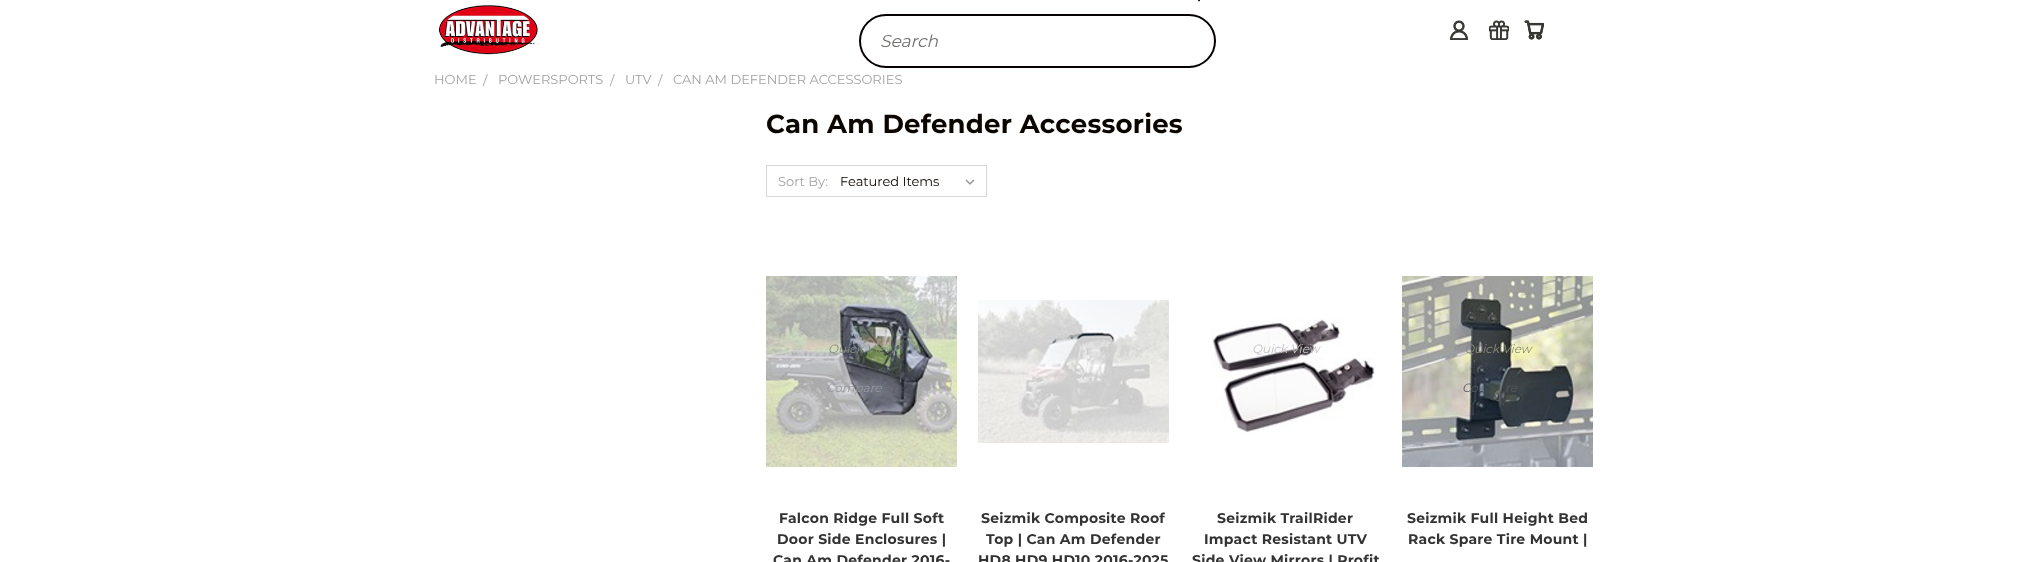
async function draw(canvas) {
	canvas.width = 2037;
	canvas.height = 562;
	const c = canvas.getContext('2d');
	c.miterLimit = 4;
	c.fontKerning = 'normal';
	async function loadImage(src) {
		const img = new Image();
		img.src = src;
		await img.decode();
		return img;
	}

	c.fillStyle = '#fff';
	c.fillRect(0, 0, 2037, 562);
	c.drawImage(await loadImage('img1.png'), 438, 5, 101, 50);
	c.drawImage(await loadImage('img2.png'), 1197, 0, 3, 2);
	c.beginPath();
	c.roundRect(860, 15, 355, 52, 26);
	c.strokeStyle = '#060000';
	c.lineWidth = 2;
	c.stroke();
	c.font = 'italic 17px Montserrat';
	c.fillStyle = '#70706e';
	c.fillText('Search', 880, 47);
	c.drawImage(await loadImage('img3.png'), 1450, 20, 18, 20);
	c.drawImage(await loadImage('img4.png'), 1489, 20, 20, 20);
	c.drawImage(await loadImage('img5.png'), 1524, 20, 20, 20);
	c.font = '13px Montserrat';
	c.fillStyle = '#a2a2a2';
	for (const [text, x, y] of [
		['HOME', 434, 84],
		['/', 483, 85],
		['POWERSPORTS', 498, 84],
		['/', 610, 85],
		['UTV', 625, 84],
		['/', 658, 85],
		['CAN AM DEFENDER ACCESSORIES', 673, 84],
	]) {
		c.fillText(text, x, y);
	}
	c.letterSpacing = '0.25px';
	c.font = 'bold 26px Montserrat';
	c.fillStyle = '#0c0600';
	c.fillText('Can Am Defender Accessories', 766, 133);
	c.strokeStyle = '#d7d7d7';
	c.lineWidth = 1;
	c.strokeRect(766.5, 165.5, 220, 31);
	c.letterSpacing = '0px';
	c.font = '13px Montserrat';
	c.fillStyle = '#a2a2a2';
	c.fillText('Sort By:', 778, 186);
	c.drawImage(await loadImage('img6.png'), 965, 179, 10, 6);
	c.fillStyle = '#0c0600';
	c.fillText('Featured Items', 840, 186);
	c.drawImage(await loadImage('img7.png'), 766, 276, 191, 191);
	c.font = 'italic 12px Montserrat';
	c.fillStyle = '#838d7f';
	c.fillText('Quick View', 828, 353);
	c.fillStyle = '#989aa1';
	c.fillText('Compare', 826, 392);
	c.letterSpacing = '0.25px';
	c.font = 'bold 14px Montserrat';
	c.fillStyle = '#333';
	for (const [text, x, y] of [
		['Falcon Ridge Full Soft', 779, 523],
		['Door Side Enclosures |', 777, 544],
		['Can Am Defender 2016-', 773, 565],
	]) {
		c.fillText(text, x, y);
	}
	c.drawImage(await loadImage('img8.png'), 978, 300, 191, 143);
	for (const [text, x, y] of [
		['Seizmik Composite Roof', 981, 523],
		['Top | Can Am Defender', 986, 544],
		['HD8 HD9 HD10 2016-2025', 978, 565],
	]) {
		c.fillText(text, x, y);
	}
	c.drawImage(await loadImage('img9.png'), 1211, 319, 164, 114);
	c.letterSpacing = '0px';
	c.font = 'italic 12px Montserrat';
	c.fillStyle = '#c3c1c3';
	c.fillText('Quick View', 1252, 353);
	c.letterSpacing = '0.25px';
	c.font = 'bold 14px Montserrat';
	c.fillStyle = '#333';
	for (const [text, x, y] of [
		['Seizmik TrailRider', 1217, 523],
		['Impact Resistant UTV', 1204, 544],
		['Side View Mirrors | Profit', 1192, 565],
	]) {
		c.fillText(text, x, y);
	}
	c.drawImage(await loadImage('img10.png'), 1402, 276, 191, 191);
	c.letterSpacing = '0px';
	c.font = 'italic 12px Montserrat';
	c.fillStyle = '#8b8d79';
	c.fillText('Quick View', 1464, 353);
	c.fillStyle = '#545a5c';
	c.fillText('Co', 1462, 392);
	c.fillText('re', 1505, 392);
	c.letterSpacing = '0.25px';
	c.font = 'bold 14px Montserrat';
	c.fillStyle = '#333';
	c.fillText('Seizmik Full Height Bed', 1407, 523);
	c.fillText('Rack Spare Tire Mount |', 1408, 544);
}

draw(document.querySelector('canvas'));
